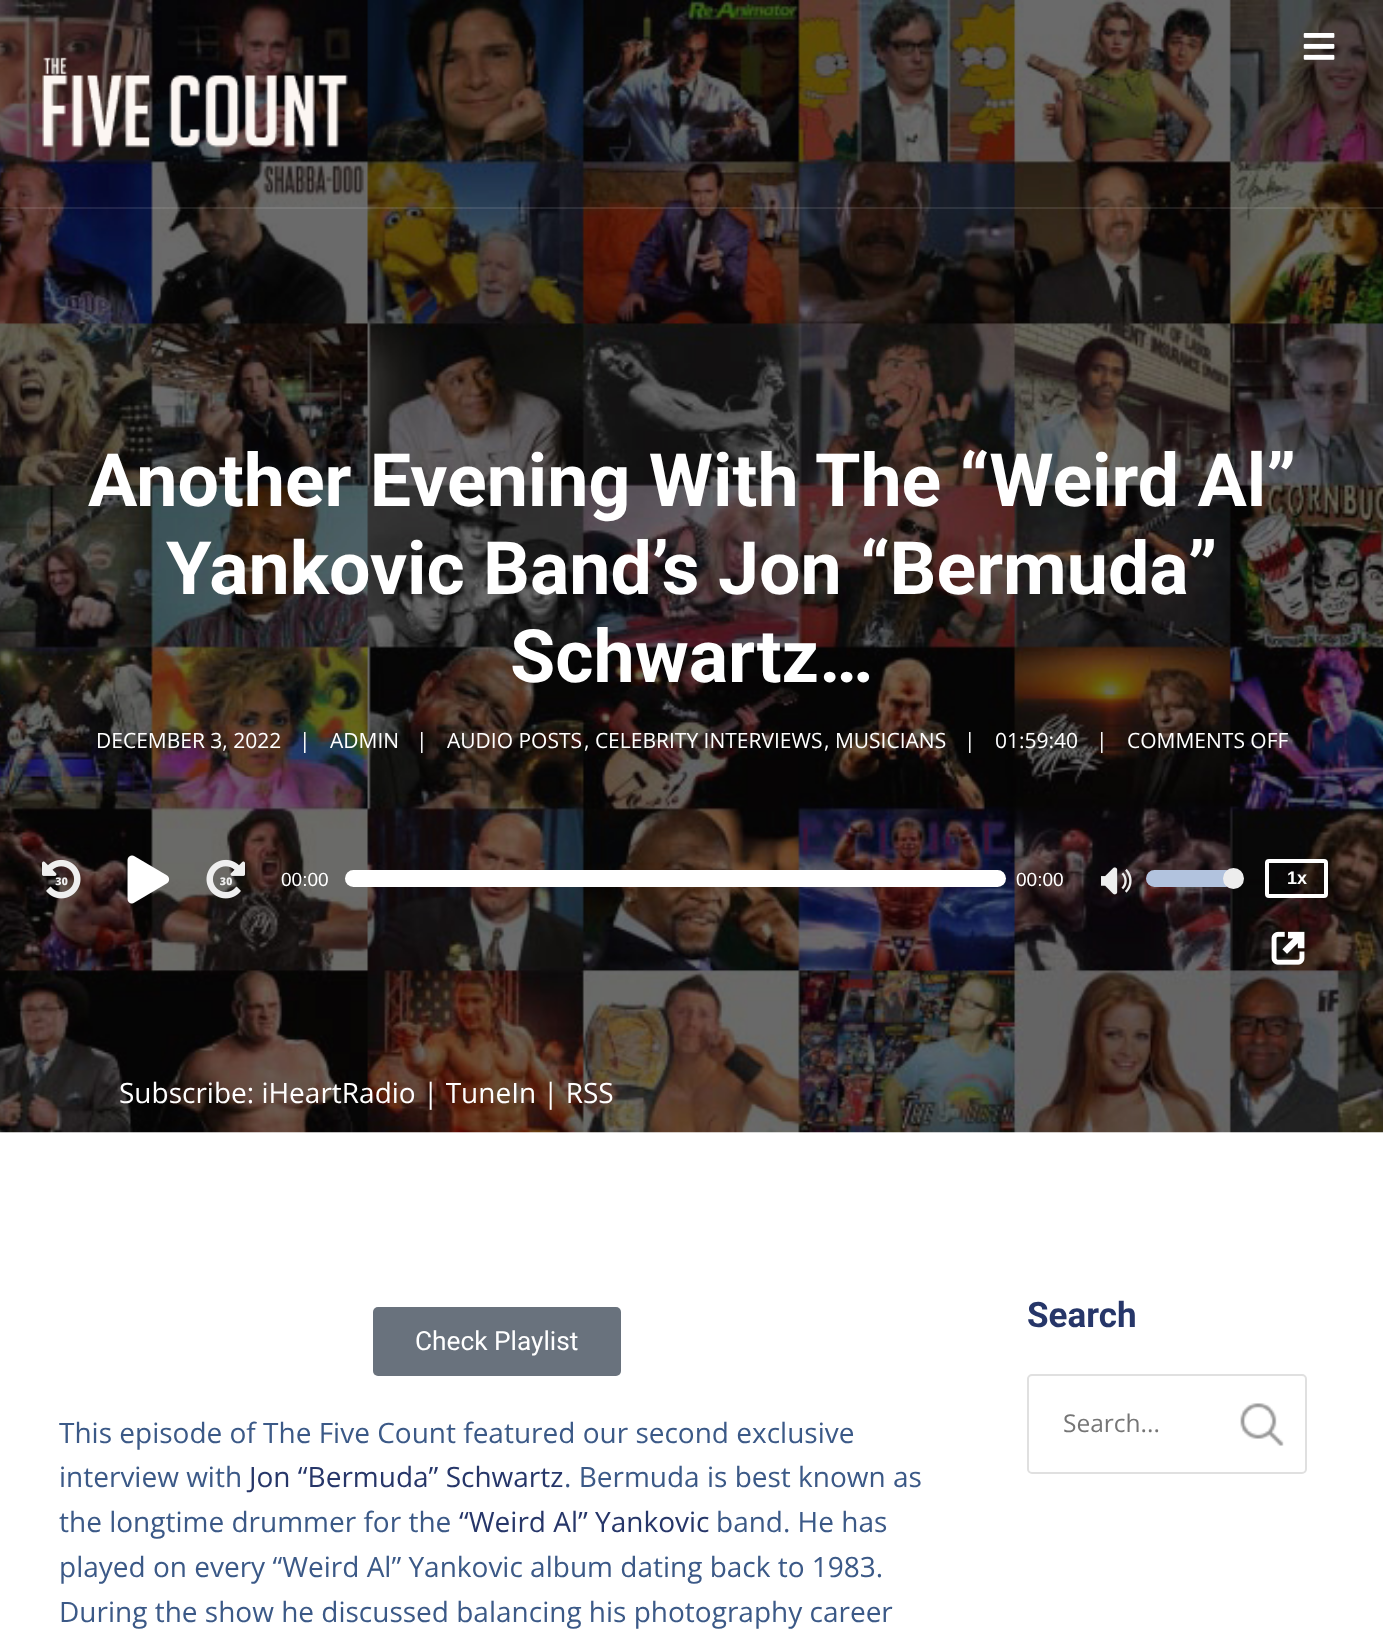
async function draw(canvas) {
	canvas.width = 1383;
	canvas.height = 1631;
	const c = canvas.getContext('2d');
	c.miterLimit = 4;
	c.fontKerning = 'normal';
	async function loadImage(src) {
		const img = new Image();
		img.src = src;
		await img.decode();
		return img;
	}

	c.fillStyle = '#fff';
	c.fillRect(0, 0, 1383, 1631);
	c.drawImage(await loadImage('img3.png'), 0, 0, 1383, 1133);
	c.drawImage(await loadImage('img1.png'), 1303, 33, 32, 27);
	c.drawImage(await loadImage('img2.png'), 42, 57, 306, 91);
	c.fillStyle = '#ffffff1a';
	c.fillRect(0, 207, 1383, 2);
	c.font = 'bold 73.5px Roboto';
	c.fillStyle = '#fff';
	for (const [text, x, y] of [
		['Another Evening With The “Weird Al”', 88, 506],
		['Yankovic Band’s Jon “Bermuda”', 166, 594],
		['Schwartz…', 510, 682],
	]) {
		c.fillText(text, x, y);
	}
	c.font = '21px Open Sans';
	for (const [text, x, y] of [
		['DECEMBER 3, 2022', 96, 748],
		['|', 299, 748],
		['ADMIN', 330, 748],
		['|', 416, 748],
		['AUDIO POSTS', 447, 748],
		[', CELEBRITY INTERVIEWS', 584, 748],
		[', MUSICIANS', 824, 748],
		['|', 964, 748],
		['01:59:40', 995, 748],
		['|', 1096, 748],
		['COMMENTS OFF', 1127, 748],
	]) {
		c.fillText(text, x, y);
	}
	c.drawImage(await loadImage('img4.png'), 42, 859, 39, 40);
	c.drawImage(await loadImage('img5.png'), 127, 855, 43, 49);
	c.drawImage(await loadImage('img6.png'), 206, 859, 39, 40);
	c.font = '19px Liberation Sans';
	c.fillText('00:00', 281, 886);
	c.beginPath();
	c.roundRect(345, 870, 661, 17, 8.5);
	c.fill();
	c.fillText('00:00', 1016, 886);
	c.drawImage(await loadImage('img7.png'), 1101, 867, 31, 28);
	c.fillStyle = '#b2c3de';
	c.beginPath();
	c.roundRect(1146, 870, 88, 17, 8.5);
	c.fill();
	c.fillStyle = '#ededed';
	c.beginPath();
	c.arc(1233.5, 878.5, 9.5, 0, 2 * Math.PI);
	c.fill();
	c.strokeStyle = '#ededed';
	c.lineWidth = 2;
	c.stroke();
	c.fillStyle = '#0000001a';
	c.beginPath();
	c.roundRect(1267, 861, 59, 35, 2);
	c.fill();
	c.strokeStyle = '#fff';
	c.lineWidth = 4;
	c.stroke();
	c.font = 'bold 18px Liberation Sans';
	c.fillStyle = '#fff';
	c.fillText('1x', 1287, 884);
	c.drawImage(await loadImage('img8.png'), 1271, 931, 34, 34);
	c.font = '28px Open Sans';
	for (const [text, x, y] of [
		['Subscribe: iHeartRadio', 119, 1103],
		['| TuneIn', 423, 1103],
		['| RSS', 543, 1103],
	]) {
		c.fillText(text, x, y);
	}
	c.fillStyle = '#69727d';
	c.beginPath();
	c.roundRect(373, 1307, 248, 69, 5);
	c.fill();
	c.font = '26.25px Roboto';
	c.fillStyle = '#fff';
	c.fillText('Check Playlist', 415, 1350);
	c.font = '28px Open Sans';
	c.fillStyle = '#3b5987';
	c.fillText('This episode of The Five Count featured our second exclusive', 59, 1443);
	c.fillText('interview with', 59, 1487);
	c.fillStyle = '#263669';
	c.fillText('Jon “Bermuda” Schwartz', 249, 1487);
	c.fillStyle = '#3b5987';
	c.fillText('. Bermuda is best known as', 564, 1487);
	c.fillText('the longtime drummer for the', 59, 1532);
	c.fillStyle = '#263669';
	c.fillText('“Weird Al” Yankovic', 459, 1532);
	c.fillStyle = '#3b5987';
	for (const [text, x, y] of [
		['band. He has', 716, 1532],
		['played on every “Weird Al” Yankovic album dating back to 1983.', 59, 1577],
		['During the show he discussed balancing his photography career', 59, 1622],
	]) {
		c.fillText(text, x, y);
	}
	c.font = 'bold 35px Roboto';
	c.fillStyle = '#263669';
	c.fillText('Search', 1027, 1327);
	c.drawImage(await loadImage('img9.png'), 1240, 1403, 44, 43);
	c.beginPath();
	c.roundRect(1028, 1375, 278, 98, 4);
	c.strokeStyle = '#e0e0e0';
	c.lineWidth = 2;
	c.stroke();
	c.font = '24.5px Open Sans';
	c.fillStyle = '#757575';
	c.fillText('Search...', 1063, 1432);
}

draw(document.querySelector('canvas'));
